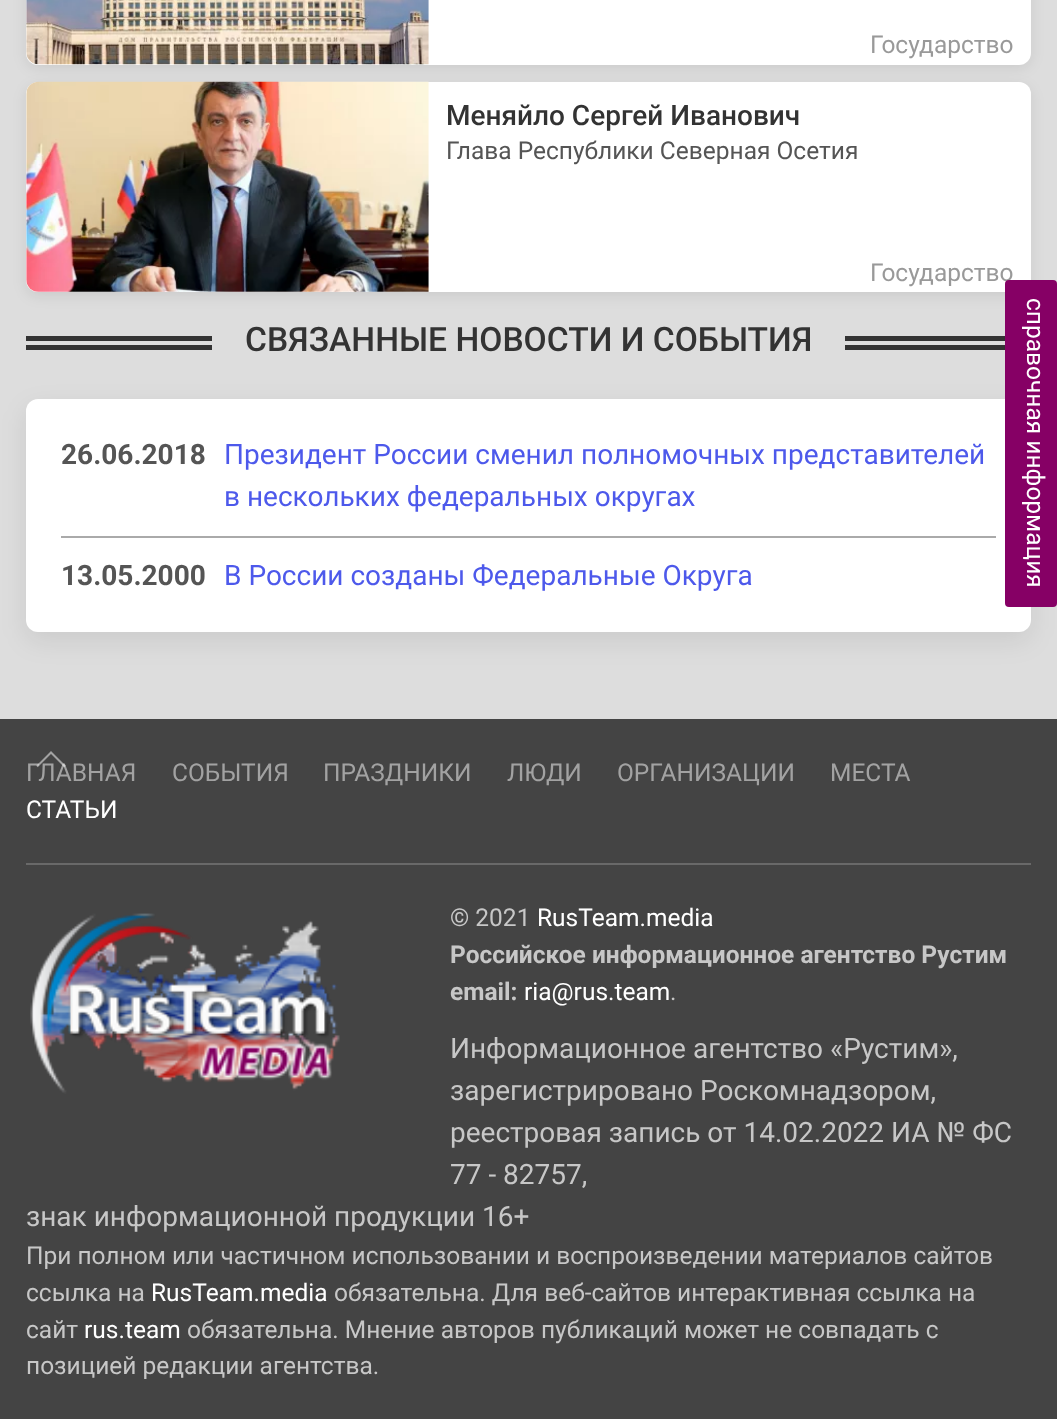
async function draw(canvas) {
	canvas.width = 1057;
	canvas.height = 1419;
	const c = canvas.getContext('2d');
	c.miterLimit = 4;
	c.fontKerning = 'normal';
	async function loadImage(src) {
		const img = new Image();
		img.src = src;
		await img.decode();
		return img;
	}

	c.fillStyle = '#ddd';
	c.fillRect(0, 0, 1057, 1419);
	c.fillStyle = '#00000014';
	c.filter = 'blur(7px)';
	c.beginPath();
	c.roundRect(26, -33, 1005, 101, 12);
	c.fill();
	c.filter = 'none';
	c.fillStyle = '#fff';
	c.beginPath();
	c.roundRect(26, -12, 1005, 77, 12);
	c.fill();
	c.drawImage(await loadImage('img1.png'), 26, 0, 403, 65);
	c.font = '24.5px Roboto';
	c.fillStyle = '#999';
	c.fillText('Государство', 870, 53);
	c.fillStyle = '#00000014';
	c.filter = 'blur(7px)';
	c.beginPath();
	c.roundRect(26, 86, 1005, 210, 12);
	c.fill();
	c.filter = 'none';
	c.fillStyle = '#fff';
	c.beginPath();
	c.roundRect(26, 82, 1005, 210, 12);
	c.fill();
	c.drawImage(await loadImage('img2.png'), 26, 81, 403, 211);
	c.font = '500 28px Roboto';
	c.fillStyle = '#333';
	c.fillText('Меняйло Сергей Иванович', 446, 125);
	c.font = '24.5px Roboto';
	c.fillStyle = '#555';
	c.fillText('Глава Республики Северная Осетия', 446, 159);
	c.fillStyle = '#999';
	c.fillText('Государство', 870, 281);
	for (const [x, y, w, h, color] of [
		[26, 336, 979, 5, '#333'],
		[26, 345, 979, 5, '#333'],
		[212, 336, 633, 14, '#ddd'],
	]) {
		c.fillStyle = color;
		c.fillRect(x, y, w, h);
	}
	c.font = '500 33.6px Roboto';
	c.fillStyle = '#333';
	c.fillText('СВЯЗАННЫЕ НОВОСТИ И СОБЫТИЯ', 245, 351);
	c.fillStyle = '#00000014';
	c.filter = 'blur(13px)';
	c.beginPath();
	c.roundRect(26, 408, 1005, 233, 12);
	c.fill();
	c.filter = 'none';
	c.fillStyle = '#fff';
	c.beginPath();
	c.roundRect(26, 399, 1005, 233, 12);
	c.fill();
	c.font = 'bold 28px Roboto';
	c.fillStyle = '#555';
	c.fillText('26.06.2018', 61, 464);
	c.font = '28px Roboto';
	c.fillStyle = '#4d59eb';
	c.fillText('Президент России сменил полномочных представителей', 224, 464);
	c.fillText('в нескольких федеральных округах', 224, 506);
	c.fillStyle = '#aaa';
	c.fillRect(61, 536, 935, 2);
	c.font = 'bold 28px Roboto';
	c.fillStyle = '#555';
	c.fillText('13.05.2000', 61, 585);
	c.font = '28px Roboto';
	c.fillStyle = '#4d59eb';
	c.fillText('В России созданы Федеральные Округа', 224, 585);
	c.fillStyle = '#860065';
	c.beginPath();
	c.roundRect(1005, 280, 52, 327, 4);
	c.fill();
	c.font = '24.5px Roboto';
	c.fillStyle = '#fff';
	c.save();
	c.translate(1027, 298);
	c.rotate(90 * Math.PI / 180);
	c.fillText('справочная информация', 0, 0);
	c.restore();
	c.fillStyle = '#444';
	c.fillRect(0, 719, 1057, 700);
	c.fillStyle = '#a2a2a2';
	c.fillText('ГЛАВНАЯ', 26, 781);
	c.beginPath();
	c.moveTo(37, 766.5);
	c.lineTo(51, 752.5);
	c.lineTo(65, 766.5);
	c.strokeStyle = '#ffffff80';
	c.lineWidth = 2.1;
	c.stroke();
	for (const [text, x, y] of [
		['СОБЫТИЯ', 172, 781],
		['ПРАЗДНИКИ', 323, 781],
		['ЛЮДИ', 507, 781],
		['ОРГАНИЗАЦИИ', 617, 781],
		['МЕСТА', 830, 781],
	]) {
		c.fillText(text, x, y);
	}
	c.fillStyle = '#fff';
	c.fillText('СТАТЬИ', 26, 818);
	c.fillStyle = '#696969';
	c.fillRect(26, 863, 1005, 2);
	c.drawImage(await loadImage('img3.png'), 30, 913, 310, 181);
	c.fillStyle = '#c7c7c7';
	c.fillText('© 2021', 450, 926);
	c.fillStyle = '#fff';
	c.fillText('RusTeam.media', 537, 926);
	c.font = 'bold 24.5px Roboto';
	c.fillStyle = '#c7c7c7';
	c.fillText('Российское информационное агентство Рустим', 450, 963);
	c.fillText('email:', 450, 1000);
	c.font = '24.5px Roboto';
	c.fillStyle = '#fff';
	c.fillText('ria@rus.team', 524, 1000);
	c.fillStyle = '#c7c7c7';
	c.fillText('.', 670, 1000);
	c.font = '28px Roboto';
	for (const [text, x, y] of [
		['Информационное агентство «Рустим»,', 450, 1058],
		['зарегистрировано Роскомнадзором,', 450, 1100],
		['реестровая запись от 14.02.2022 ИА № ФС', 450, 1142],
		['77 - 82757,', 450, 1184],
		['знак информационной продукции 16+', 26, 1226],
	]) {
		c.fillText(text, x, y);
	}
	c.font = '24.5px Roboto';
	c.fillText('При полном или частичном использовании и воспроизведении материалов сайтов', 26, 1264);
	c.fillText('ссылка на', 26, 1301);
	c.fillStyle = '#fff';
	c.fillText('RusTeam.media', 151, 1301);
	c.fillStyle = '#c7c7c7';
	c.fillText('обязательна. Для веб-сайтов интерактивная ссылка на', 334, 1301);
	c.fillText('сайт', 26, 1338);
	c.fillStyle = '#fff';
	c.fillText('rus.team', 84, 1338);
	c.fillStyle = '#c7c7c7';
	c.fillText('обязательна. Мнение авторов публикаций может не совпадать с', 187, 1338);
	c.fillText('позицией редакции агентства.', 26, 1374);
}

draw(document.querySelector('canvas'));
